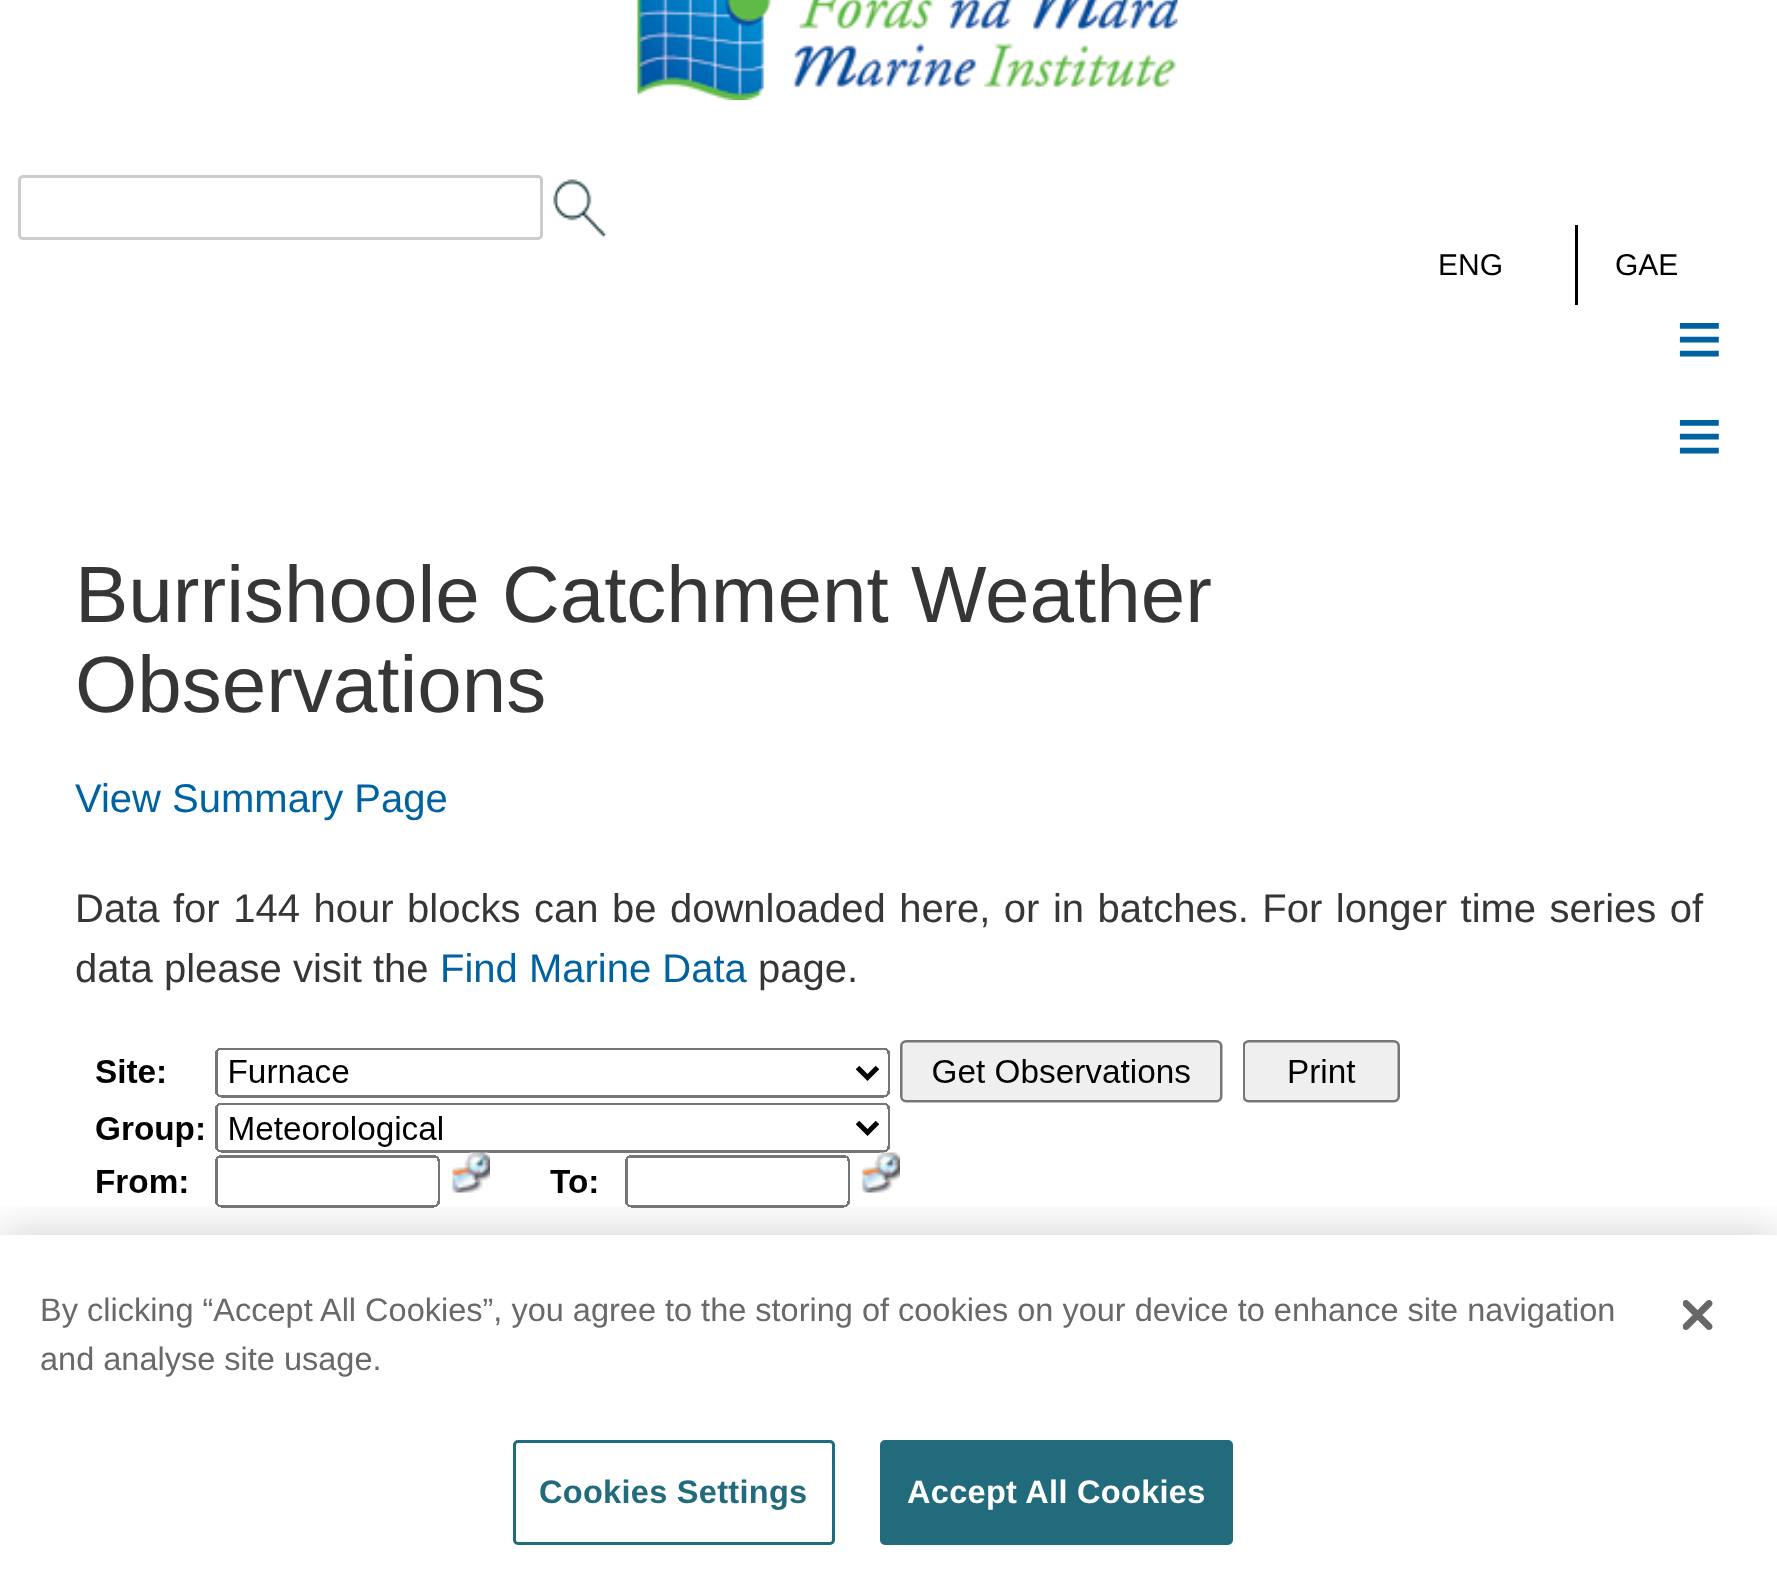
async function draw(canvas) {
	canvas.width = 1777;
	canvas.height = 1585;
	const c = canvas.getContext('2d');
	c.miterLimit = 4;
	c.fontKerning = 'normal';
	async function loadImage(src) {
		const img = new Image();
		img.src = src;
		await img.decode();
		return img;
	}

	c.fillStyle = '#fff';
	c.fillRect(0, 0, 1777, 1585);
	c.drawImage(await loadImage('img1.png'), 637, 0, 541, 100);
	c.beginPath();
	c.roundRect(19.5, 176.5, 522, 62, 3.5);
	c.strokeStyle = '#ccc';
	c.lineWidth = 3;
	c.stroke();
	c.drawImage(await loadImage('img2.png'), 553, 179, 54, 60);
	c.fillStyle = '#000';
	c.fillRect(1575, 225, 3, 80);
	c.font = '30px Liberation Sans';
	c.fillText('ENG', 1438, 275);
	c.fillText('GAE', 1615, 275);
	c.font = 'bold 80px Liberation Sans';
	c.fillStyle = '#0062a0';
	c.fillText('≡', 1676, 366);
	c.fillText('≡', 1676, 463);
	c.font = '80px Liberation Sans';
	c.fillStyle = '#363636';
	c.fillText('Burrishoole Catchment Weather', 75, 622);
	c.fillText('Observations', 75, 712);
	c.font = '40px Liberation Sans';
	c.fillStyle = '#0062a0';
	c.fillText('View Summary Page', 75, 812);
	c.wordSpacing = '2.4px';
	c.fillStyle = '#363636';
	c.fillText('Data for 144 hour blocks can be downloaded here, or in batches. For longer time series of', 75, 922);
	c.wordSpacing = '0px';
	c.fillText('data please visit the', 75, 982);
	c.fillStyle = '#0062a0';
	c.fillText('Find Marine Data', 440, 982);
	c.fillStyle = '#363636';
	c.fillText('page.', 758, 982);
	c.drawImage(await loadImage('img3.png'), 96, 1040, 1304, 168);
	c.save();
	c.beginPath();
	c.rect(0, 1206, 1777, 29);
	c.clip();
	c.fillStyle = '#00000033';
	c.filter = 'blur(22.5px)';
	c.beginPath();
	c.rect(0, 1235, 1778, 350);
	c.fill();
	c.filter = 'none';
	c.restore();
	c.font = '32.5px Liberation Sans';
	c.fillStyle = '#696969';
	c.fillText('By clicking “Accept All Cookies”, you agree to the storing of cookies on your device to enhance site navigation', 40, 1321);
	c.fillText('and analyse site usage.', 40, 1370);
	c.beginPath();
	c.roundRect(514.5, 1441.5, 319, 102, 3.5);
	c.strokeStyle = '#226b7d';
	c.stroke();
	c.letterSpacing = '0.3px';
	c.font = 'bold 32.5px Liberation Sans';
	c.fillStyle = '#226b7d';
	c.fillText('Cookies Settings', 539, 1503);
	c.beginPath();
	c.roundRect(881.5, 1441.5, 350, 102, 3.5);
	c.fill();
	c.stroke();
	c.fillStyle = '#fff';
	c.fillText('Accept All Cookies', 907, 1503);
	c.drawImage(await loadImage('img4.png'), 1683, 1300, 30, 30);
}

draw(document.querySelector('canvas'));
